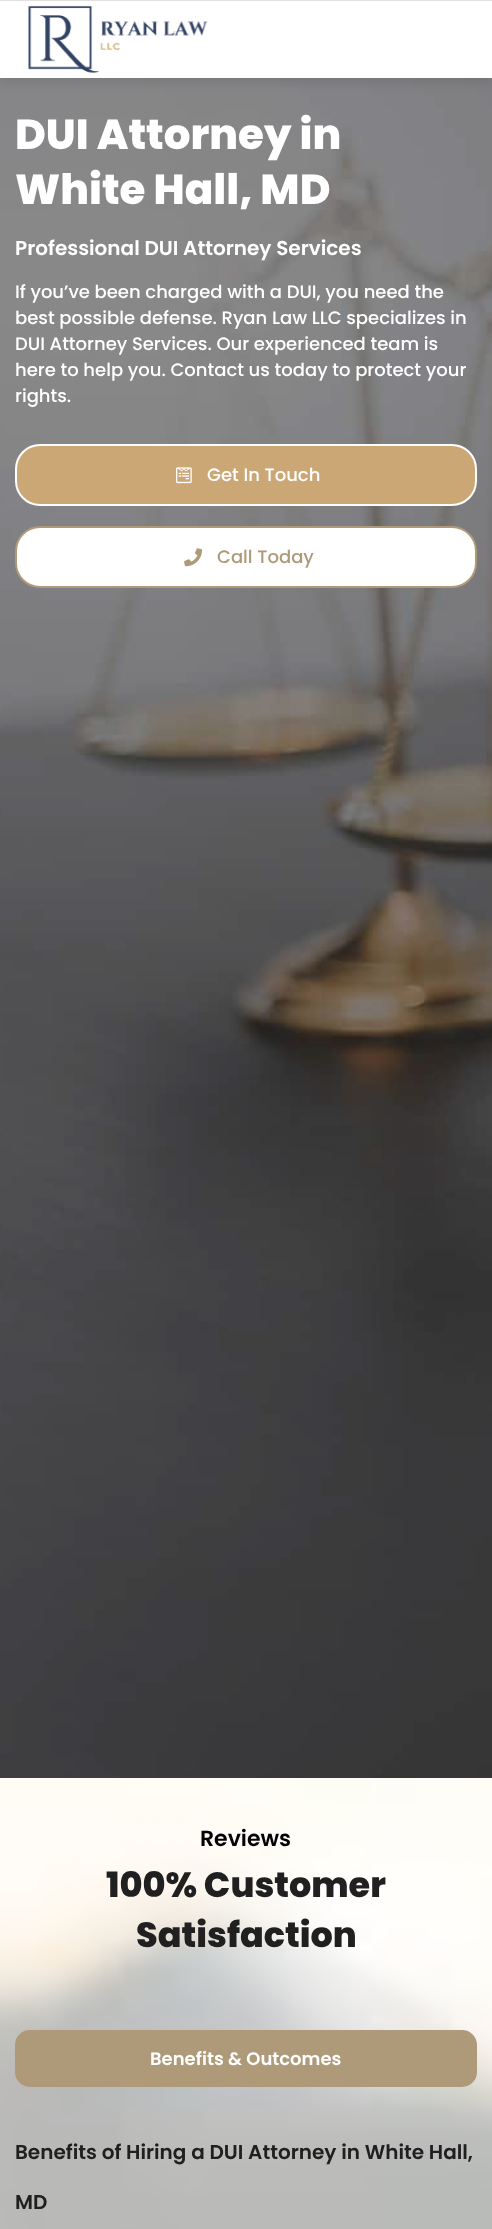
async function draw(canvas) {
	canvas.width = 492;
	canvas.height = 2229;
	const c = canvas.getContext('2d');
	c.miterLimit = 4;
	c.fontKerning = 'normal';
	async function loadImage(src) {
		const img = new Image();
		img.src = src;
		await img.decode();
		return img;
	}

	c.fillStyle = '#fff';
	c.fillRect(0, 0, 492, 2229);
	c.drawImage(await loadImage('img2.png'), 0, 78, 492, 1700);
	c.fillStyle = '#00000012';
	c.filter = 'blur(5px)';
	c.beginPath();
	c.rect(0, 6, 492, 78);
	c.fill();
	c.filter = 'none';
	c.fillStyle = '#fff';
	c.fillRect(0, 1, 492, 77);
	c.fillStyle = '#e0e0e0';
	c.fillRect(0, 0, 492, 1);
	c.drawImage(await loadImage('img1.png'), 28, 5, 180, 68);
	c.font = '800 42px Poppins';
	c.fillStyle = '#fff';
	c.fillText('DUI Attorney in', 15, 149);
	c.fillText('White Hall, MD', 15, 204);
	c.font = '600 20px Poppins';
	c.fillText('Professional DUI Attorney Services', 15, 255);
	c.font = '500 18px Poppins';
	for (const [text, x, y] of [
		['If you’ve been charged with a DUI, you need the', 15, 298],
		['best possible defense. Ryan Law LLC specializes in', 15, 324],
		['DUI Attorney Services. Our experienced team is', 15, 350],
		['here to help you. Contact us today to protect your', 15, 376],
		['rights.', 15, 402],
	]) {
		c.fillText(text, x, y);
	}
	c.fillStyle = '#cca776';
	c.beginPath();
	c.roundRect(16, 445, 460, 60, 24);
	c.fill();
	c.strokeStyle = '#fff';
	c.lineWidth = 2;
	c.stroke();
	c.drawImage(await loadImage('img3.png'), 176, 467, 16, 17);
	c.fillStyle = '#fff';
	c.fillText('Get In Touch', 207, 481);
	c.beginPath();
	c.roundRect(16, 527, 460, 60, 24);
	c.fill();
	c.strokeStyle = '#ae9978';
	c.stroke();
	c.drawImage(await loadImage('img4.png'), 184, 548, 18, 19);
	c.fillStyle = '#ae9978';
	c.fillText('Call Today', 217, 563);
	c.drawImage(await loadImage('img5.png'), 0, 1778, 492, 451);
	c.font = '600 22px Poppins';
	c.fillStyle = '#000';
	c.fillText('Reviews', 200, 1846);
	c.font = '800 35px Poppins';
	c.fillStyle = '#202020';
	c.fillText('100% Customer', 106, 1897);
	c.fillText('Satisfaction', 136, 1947);
	c.fillStyle = '#ae9978';
	c.beginPath();
	c.roundRect(15, 2030, 462, 57, 15);
	c.fill();
	c.font = '600 18px Poppins';
	c.fillStyle = '#fff';
	c.fillText('Benefits & Outcomes', 150, 2065);
	c.font = '600 20px Poppins';
	c.fillStyle = '#202020';
	c.fillText('Benefits of Hiring a DUI Attorney in White Hall,', 15, 2159);
	c.fillText('MD', 15, 2209);
}

draw(document.querySelector('canvas'));
